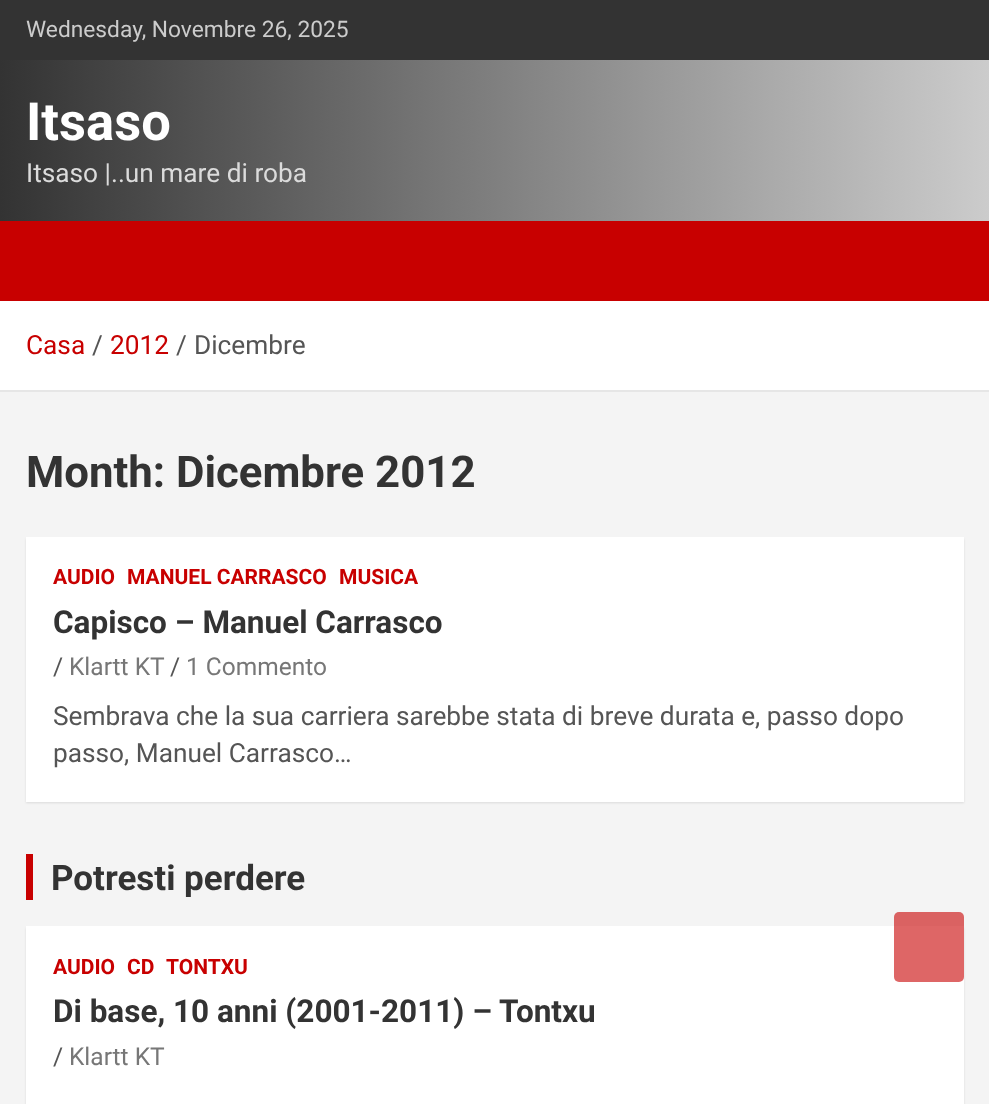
async function draw(canvas) {
	canvas.width = 989;
	canvas.height = 1104;
	const c = canvas.getContext('2d');
	c.miterLimit = 4;
	c.fontKerning = 'normal';
	let gradient;

	c.fillStyle = '#f4f4f4';
	c.fillRect(0, 0, 989, 1104);
	c.fillStyle = '#333';
	c.fillRect(0, 0, 989, 60);
	c.font = '22.75px Roboto';
	c.fillStyle = '#ccc';
	c.fillText('Wednesday, Novembre 26, 2025', 26, 37);
	gradient = c.createLinearGradient(0, 140, 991, 140);
	gradient.addColorStop(0, '#333');
	gradient.addColorStop(1, '#ccc');
	c.fillStyle = gradient;
	c.fillRect(0, 60, 989, 161);
	c.font = 'bold 52.5px Roboto';
	c.fillStyle = '#fff';
	c.fillText('Itsaso', 26, 140);
	c.font = '26.25px Roboto';
	c.fillStyle = '#dbdbdb';
	c.fillText('Itsaso |..un mare di roba', 26, 182);
	for (const [x, y, w, h, color] of [
		[0, 221, 989, 80, '#c80000'],
		[0, 301, 989, 89, '#fff'],
		[0, 390, 989, 2, '#e6e6e6'],
	]) {
		c.fillStyle = color;
		c.fillRect(x, y, w, h);
	}
	c.fillStyle = '#c80000';
	c.fillText('Casa', 26, 354);
	c.fillStyle = '#555';
	c.fillText('/', 92, 354);
	c.fillStyle = '#c80000';
	c.fillText('2012', 110, 354);
	c.fillStyle = '#555';
	c.fillText('/', 176, 354);
	c.fillText('Dicembre', 194, 354);
	c.font = 'bold 43.75px Roboto';
	c.fillStyle = '#333';
	c.fillText('Month: Dicembre 2012', 26, 487);
	c.fillStyle = '#0000001a';
	c.filter = 'blur(1px)';
	c.beginPath();
	c.rect(26, 539, 938, 264);
	c.fill();
	c.filter = 'none';
	c.fillStyle = '#fff';
	c.fillRect(26, 537, 938, 265);
	c.font = 'bold 21px Roboto';
	c.fillStyle = '#c80000';
	for (const [text, x, y] of [
		['AUDIO', 53, 584],
		['MANUEL CARRASCO', 127, 584],
		['MUSICA', 339, 584],
	]) {
		c.fillText(text, x, y);
	}
	c.font = 'bold 31.5px Roboto';
	c.fillStyle = '#333';
	c.fillText('Capisco – Manuel Carrasco', 53, 633);
	c.font = '24.5px Roboto';
	c.fillStyle = '#555';
	c.fillText('/', 53, 675);
	c.fillStyle = '#777';
	c.fillText('Klartt KT', 69, 675);
	c.fillStyle = '#555';
	c.fillText('/', 170, 675);
	c.fillStyle = '#777';
	c.fillText('1 Commento', 186, 675);
	c.font = '26.25px Roboto';
	c.fillStyle = '#555';
	c.fillText('Sembrava che la sua carriera sarebbe stata di breve durata e, passo dopo', 53, 725);
	c.fillText('passo, Manuel Carrasco…', 53, 762);
	c.fillStyle = '#c80000';
	c.fillRect(26, 854, 7, 46);
	c.font = 'bold 35px Roboto';
	c.fillStyle = '#333';
	c.fillText('Potresti perdere', 51, 890);
	c.fillStyle = '#0000001a';
	c.filter = 'blur(1px)';
	c.beginPath();
	c.rect(26, 928, 938, 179);
	c.fill();
	c.filter = 'none';
	c.fillStyle = '#fff';
	c.fillRect(26, 926, 938, 178);
	c.font = 'bold 21px Roboto';
	c.fillStyle = '#c80000';
	for (const [text, x, y] of [
		['AUDIO', 53, 974],
		['CD', 127, 974],
		['TONTXU', 166, 974],
	]) {
		c.fillText(text, x, y);
	}
	c.font = 'bold 31.5px Roboto';
	c.fillStyle = '#333';
	c.fillText('Di base, 10 anni (2001-2011) – Tontxu', 53, 1022);
	c.font = '24.5px Roboto';
	c.fillStyle = '#555';
	c.fillText('/', 53, 1065);
	c.fillStyle = '#777';
	c.fillText('Klartt KT', 69, 1065);
	c.fillStyle = '#c8000099';
	c.beginPath();
	c.roundRect(894, 912, 70, 70, 5);
	c.fill();
}

draw(document.querySelector('canvas'));
